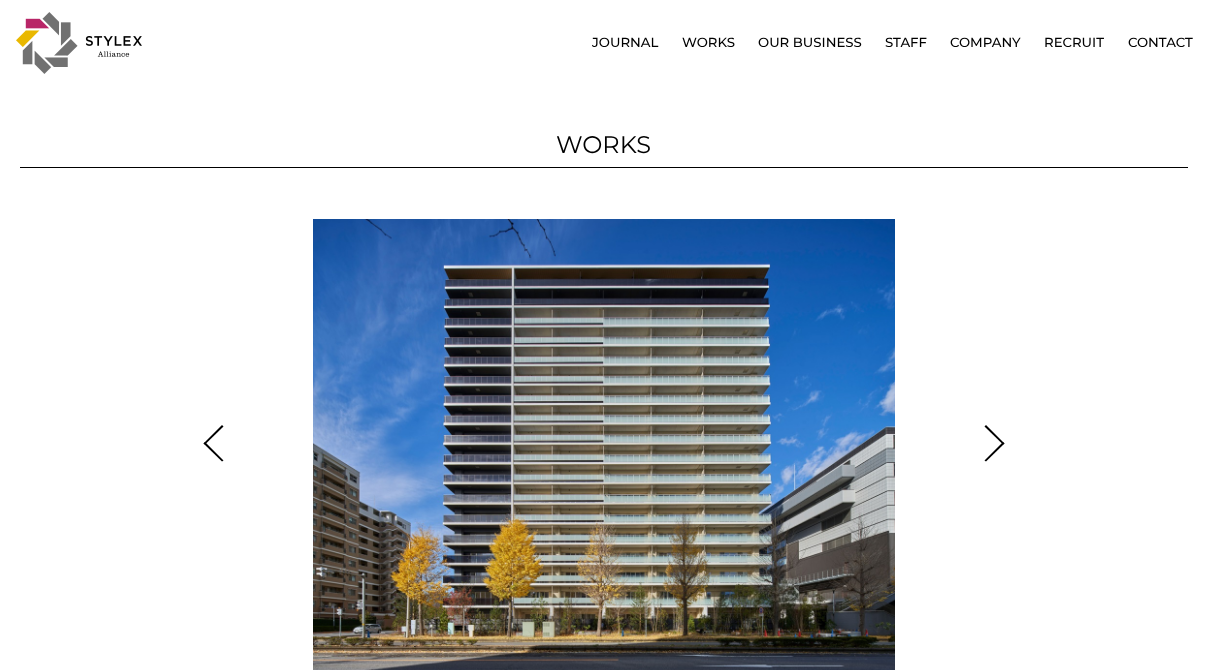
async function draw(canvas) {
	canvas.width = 1208;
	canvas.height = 670;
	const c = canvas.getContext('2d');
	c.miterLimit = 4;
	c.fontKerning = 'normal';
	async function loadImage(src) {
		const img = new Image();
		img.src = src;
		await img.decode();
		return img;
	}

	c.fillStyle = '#fff';
	c.fillRect(0, 0, 1208, 670);
	c.drawImage(await loadImage('img1.png'), 16, 12, 126, 62);
	c.font = '500 13.25px Montserrat';
	c.fillStyle = '#000';
	for (const [text, x, y] of [
		['JOURNAL', 592, 47],
		['WORKS', 682, 47],
		['OUR BUSINESS', 758, 47],
		['STAFF', 885, 47],
		['COMPANY', 950, 47],
		['RECRUIT', 1044, 47],
		['CONTACT', 1128, 47],
	]) {
		c.fillText(text, x, y);
	}
	c.font = '24px Montserrat';
	c.fillText('WORKS', 556, 153);
	c.fillRect(20, 167, 1168, 1);
	c.beginPath();
	c.moveTo(222, 461.5);
	c.lineTo(203.5, 443.5);
	c.lineTo(205, 442);
	c.lineTo(223.5, 460.5);
	c.closePath();
	c.fill();
	c.beginPath();
	c.moveTo(205, 444.5);
	c.lineTo(203.5, 443.5);
	c.lineTo(222, 425);
	c.lineTo(223.5, 426.5);
	c.closePath();
	c.fill();
	c.drawImage(await loadImage('img2.png'), 313, 219, 582, 451);
	c.beginPath();
	c.moveTo(986, 425);
	c.lineTo(1004.5, 443.5);
	c.lineTo(1003, 444.5);
	c.lineTo(984.5, 426.5);
	c.closePath();
	c.fill();
	c.beginPath();
	c.moveTo(1003, 442);
	c.lineTo(1004.5, 443.5);
	c.lineTo(986, 461.5);
	c.lineTo(984.5, 460.5);
	c.closePath();
	c.fill();
}

draw(document.querySelector('canvas'));
